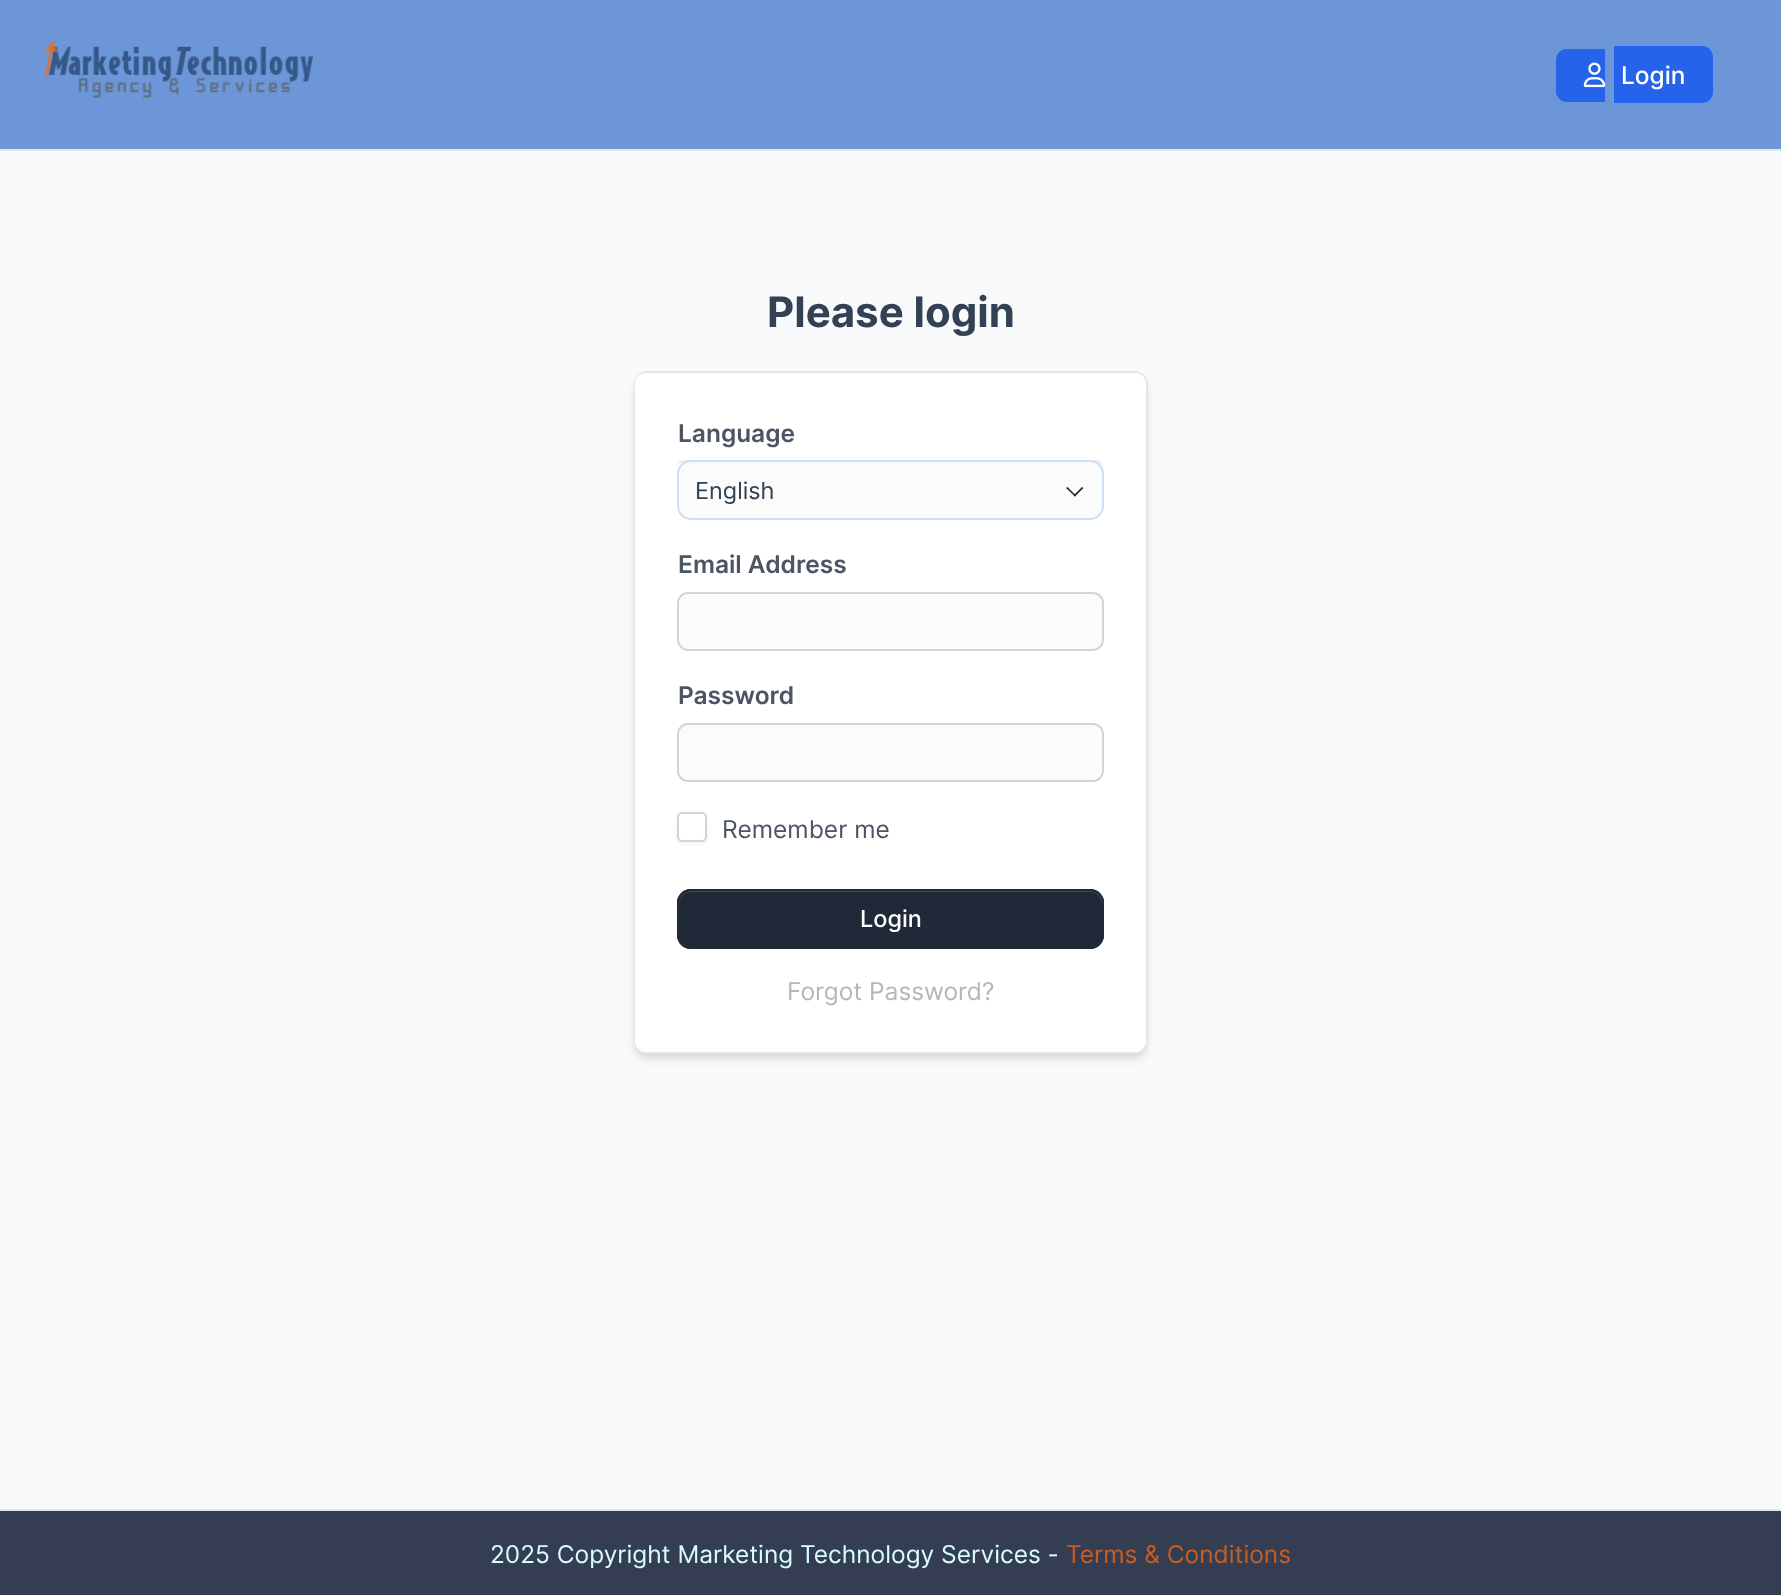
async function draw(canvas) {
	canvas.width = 1781;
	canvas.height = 1595;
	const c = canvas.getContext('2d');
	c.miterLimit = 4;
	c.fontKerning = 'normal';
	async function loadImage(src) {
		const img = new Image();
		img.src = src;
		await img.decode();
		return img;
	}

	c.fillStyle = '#f8fafc';
	c.fillRect(0, 0, 1781, 1595);
	c.fillStyle = '#6c96d8';
	c.fillRect(0, 0, 1781, 149);
	c.fillStyle = '#e2e8f0';
	c.fillRect(0, 149, 1781, 2);
	c.drawImage(await loadImage('img1.png'), 43, 40, 270, 58);
	c.fillStyle = '#2563eb';
	c.beginPath();
	c.roundRect(1556, 49, 49, 53, [11, 0, 0, 11]);
	c.fill();
	c.beginPath();
	c.roundRect(1614, 46, 99, 57, [0, 11, 11, 0]);
	c.fill();
	c.drawImage(await loadImage('img2.png'), 1583, 62, 23, 26);
	c.font = '500 24.5px Inter';
	c.fillStyle = '#fff';
	c.fillText('Login', 1621, 84);
	c.font = 'bold 42px Inter';
	c.fillStyle = '#334155';
	c.fillText('Please login', 767, 327);
	c.fillStyle = '#0000001a';
	c.filter = 'blur(3.5px)';
	c.beginPath();
	c.roundRect(637, 378, 508, 676, 11);
	c.fill();
	c.filter = 'none';
	c.filter = 'blur(5px)';
	c.beginPath();
	c.roundRect(635, 380, 511, 679, 12);
	c.fill();
	c.filter = 'none';
	c.fillStyle = '#fff';
	c.beginPath();
	c.roundRect(634, 371, 514, 683, 14);
	c.fill();
	c.beginPath();
	c.roundRect(635, 372, 512, 681, 13);
	c.strokeStyle = '#d1d5db99';
	c.lineWidth = 2;
	c.stroke();
	c.beginPath();
	c.roundRect(635, 373, 511, 679, 11);
	c.fill();
	c.font = '600 24.5px Inter';
	c.fillStyle = '#4b5563';
	c.fillText('Language', 678, 442);
	c.fillStyle = '#ececec';
	c.beginPath();
	c.moveTo(684, 462);
	c.lineTo(1097, 462);
	c.bezierCurveTo(1101, 462, 1104, 465, 1104, 469);
	c.bezierCurveTo(1104, 465, 1102, 460, 1097, 460);
	c.lineTo(684, 460);
	c.bezierCurveTo(679, 460, 677, 465, 677, 469);
	c.bezierCurveTo(677, 465, 680, 462, 684, 462);
	c.closePath();
	c.fill();
	c.fillStyle = '#f9fafbb3';
	c.beginPath();
	c.roundRect(678, 461, 425, 58, 13);
	c.fill();
	c.strokeStyle = '#cde0f2';
	c.stroke();
	c.font = '23.5px Inter';
	c.fillStyle = '#334155';
	c.fillText('English', 695, 499);
	c.fillStyle = '#1f2937';
	c.beginPath();
	c.moveTo(1082, 487);
	c.lineTo(1083.5, 488);
	c.lineTo(1075, 496.5);
	c.lineTo(1073.5, 495.5);
	c.closePath();
	c.fill();
	c.beginPath();
	c.moveTo(1067.5, 487);
	c.lineTo(1076, 495.5);
	c.lineTo(1075, 496.5);
	c.lineTo(1066, 488);
	c.closePath();
	c.fill();
	c.font = '600 24.5px Inter';
	c.fillStyle = '#4b5563';
	c.fillText('Email Address', 678, 573);
	c.fillStyle = '#f9fafbb3';
	c.beginPath();
	c.roundRect(678, 593, 425, 57, 10);
	c.fill();
	c.strokeStyle = '#d1d5db';
	c.stroke();
	c.fillStyle = '#4b5563';
	c.fillText('Password', 678, 704);
	c.fillStyle = '#f9fafbb3';
	c.beginPath();
	c.roundRect(678, 724, 425, 57, 10);
	c.fill();
	c.stroke();
	c.fillStyle = '#0000000d';
	c.filter = 'blur(2px)';
	c.beginPath();
	c.roundRect(677, 814, 30, 30, 5);
	c.fill();
	c.filter = 'none';
	c.fillStyle = '#fff';
	c.beginPath();
	c.roundRect(678, 813, 28, 28, 4);
	c.fill();
	c.stroke();
	c.font = '24.5px Inter';
	c.fillStyle = '#4b5563';
	c.fillText('Remember me', 722, 838);
	c.fillStyle = '#1f2937';
	c.beginPath();
	c.roundRect(677, 889, 427, 60, 14);
	c.fill();
	c.fillStyle = '#414955';
	c.beginPath();
	c.moveTo(691, 892);
	c.lineTo(1090, 892);
	c.bezierCurveTo(1097, 892, 1102, 898, 1102, 905);
	c.lineTo(1102, 936);
	c.bezierCurveTo(1102, 939, 1101, 941, 1100, 943);
	c.bezierCurveTo(1102, 941, 1103, 938, 1103, 935);
	c.lineTo(1103, 903);
	c.bezierCurveTo(1103, 896, 1098, 891, 1091, 891);
	c.lineTo(691, 891);
	c.bezierCurveTo(684, 891, 679, 896, 679, 903);
	c.lineTo(679, 905);
	c.bezierCurveTo(679, 898, 684, 892, 691, 892);
	c.closePath();
	c.fill();
	c.beginPath();
	c.roundRect(678, 890, 425, 58, 13);
	c.strokeStyle = '#1f2937';
	c.stroke();
	c.font = '500 23.5px Inter';
	c.fillStyle = '#fff';
	c.fillText('Login', 860, 927);
	c.font = '24.5px Inter';
	c.fillStyle = '#bab5b5';
	c.fillText('Forgot Password?', 787, 1000);
	c.fillStyle = '#353d52';
	c.fillRect(0, 1511, 1781, 84);
	c.fillStyle = '#e2e8f0';
	c.fillRect(0, 1509, 1781, 2);
	c.fillStyle = '#d7fdff';
	c.fillText('2025 Copyright Marketing Technology Services -', 490, 1563);
	c.fillStyle = '#c75e23';
	c.fillText('Terms & Conditions', 1066, 1563);
}

draw(document.querySelector('canvas'));
